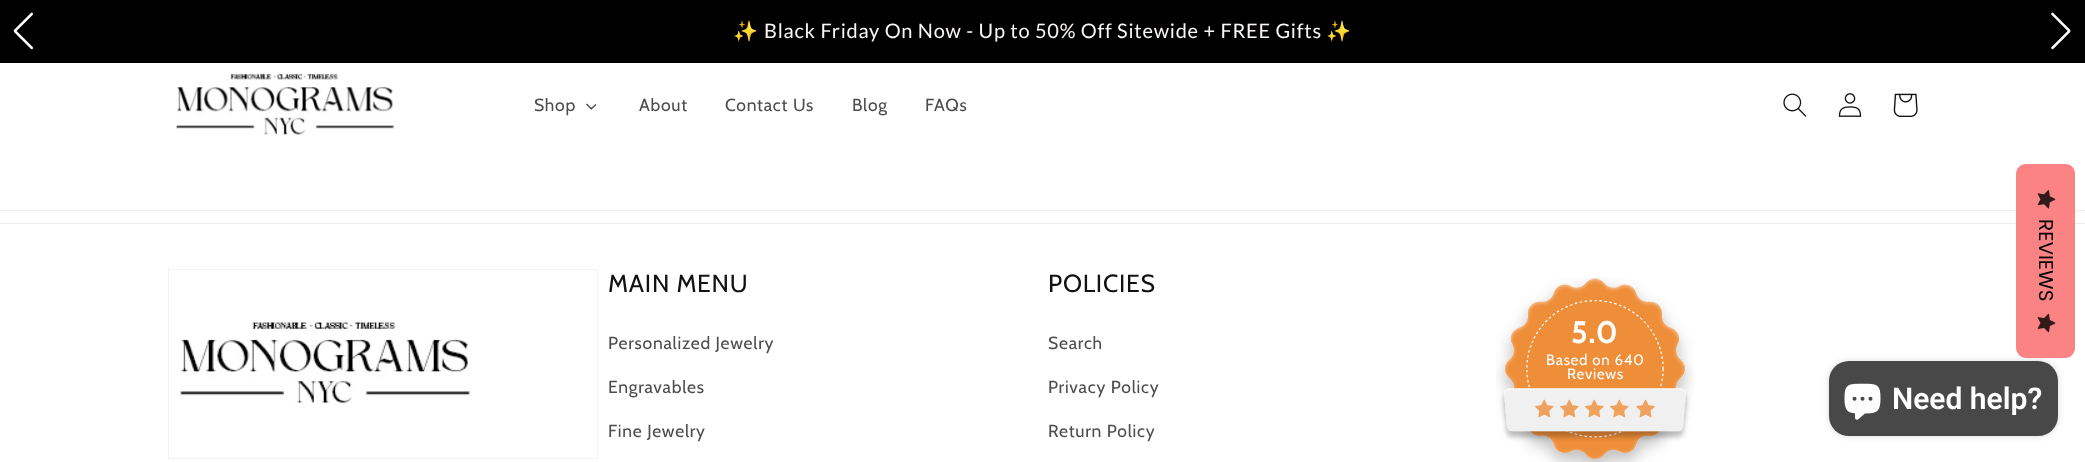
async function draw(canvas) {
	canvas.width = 2085;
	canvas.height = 462;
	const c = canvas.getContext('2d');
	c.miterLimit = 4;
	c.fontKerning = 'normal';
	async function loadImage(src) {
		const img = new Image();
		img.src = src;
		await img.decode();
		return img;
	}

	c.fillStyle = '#fff';
	c.fillRect(0, 0, 2085, 462);
	c.fillStyle = '#000';
	c.fillRect(0, 0, 2085, 63);
	c.drawImage(await loadImage('img1.png'), 13, 12, 21, 38);
	c.letterSpacing = '0.75px';
	c.font = '20px Noto Color Emoji';
	c.fillStyle = '#fbf5f5';
	c.fillText('✨', 733, 38);
	c.font = '20px Lato';
	c.fillText('Black Friday On Now - Up to 50% Off Sitewide + FREE Gifts', 764, 38);
	c.font = '20px Noto Color Emoji';
	c.fillText('✨', 1326, 38);
	c.drawImage(await loadImage('img2.png'), 2051, 12, 20, 38);
	c.fillStyle = '#ececec';
	c.fillRect(0, 210, 2085, 1);
	c.drawImage(await loadImage('img3.png'), 176, 73, 219, 62);
	c.font = '17.5px Cabin';
	c.fillStyle = '#4d4d4d';
	c.fillText('Shop', 534, 111);
	c.beginPath();
	c.moveTo(595.5, 104);
	c.lineTo(596.5, 105);
	c.lineTo(591.5, 109.5);
	c.lineTo(590.5, 108.5);
	c.closePath();
	c.fill();
	c.fillStyle = '#121212bf';
	c.beginPath();
	c.moveTo(587, 103.5);
	c.lineTo(592, 108.5);
	c.lineTo(591, 109.5);
	c.lineTo(586, 104.5);
	c.closePath();
	c.fill();
	c.fillStyle = '#4d4d4d';
	for (const [text, x, y] of [
		['About', 639, 111],
		['Contact Us', 725, 111],
		['Blog', 852, 111],
		['FAQs', 925, 111],
	]) {
		c.fillText(text, x, y);
	}
	c.drawImage(await loadImage('img4.png'), 1783, 93, 24, 24);
	c.drawImage(await loadImage('img5.png'), 1838, 93, 24, 24);
	c.drawImage(await loadImage('img6.png'), 1893, 93, 25, 24);
	c.fillStyle = '#ececec';
	c.fillRect(0, 223, 2085, 1);
	c.fillStyle = '#00000026';
	c.filter = 'blur(3px)';
	c.beginPath();
	c.roundRect(1829, 361, 229, 75, 20);
	c.fill();
	c.filter = 'none';
	c.fillStyle = '#fb8383';
	c.beginPath();
	c.moveTo(2075, 174);
	c.lineTo(2075, 348);
	c.bezierCurveTo(2075, 353, 2071, 358, 2065, 358);
	c.lineTo(2026, 358);
	c.bezierCurveTo(2021, 358, 2016, 353, 2016, 348);
	c.lineTo(2016, 174);
	c.bezierCurveTo(2016, 168, 2021, 164, 2026, 164);
	c.lineTo(2065, 164);
	c.bezierCurveTo(2071, 164, 2075, 168, 2075, 174);
	c.closePath();
	c.fill();
	c.drawImage(await loadImage('img7.png'), 2037, 190, 19, 19);
	c.letterSpacing = '0px';
	c.font = '20px Poppins';
	c.fillStyle = '#000';
	c.save();
	c.translate(2039, 219);
	c.rotate(90 * Math.PI / 180);
	c.fillText('REVIEWS', 0, 0);
	c.restore();
	c.drawImage(await loadImage('img8.png'), 2037, 313, 19, 20);
	c.strokeStyle = '#f3f3f3';
	c.strokeRect(168.5, 269.5, 429, 189);
	c.drawImage(await loadImage('img9.png'), 179, 320, 292, 85);
	c.letterSpacing = '0.75px';
	c.font = '24.75px Cabin';
	c.fillStyle = '#121212';
	c.fillText('MAIN MENU', 608, 292);
	c.font = '17.5px Cabin';
	c.fillStyle = '#4d4d4d';
	for (const [text, x, y] of [
		['Personalized Jewelry', 608, 349],
		['Engravables', 608, 393],
		['Fine Jewelry', 608, 437],
	]) {
		c.fillText(text, x, y);
	}
	c.font = '24.75px Cabin';
	c.fillStyle = '#121212';
	c.fillText('POLICIES', 1048, 292);
	c.font = '17.5px Cabin';
	c.fillStyle = '#4d4d4d';
	for (const [text, x, y] of [
		['Search', 1048, 349],
		['Privacy Policy', 1048, 393],
		['Return Policy', 1048, 437],
	]) {
		c.fillText(text, x, y);
	}
	c.drawImage(await loadImage('img10.png'), 1496, 277, 198, 185);
	c.font = 'bold 31px Cabin';
	c.fillStyle = '#fff';
	c.fillText('5.0', 1571, 343);
	c.font = '15px Cabin';
	c.fillText('Based on 640', 1546, 365);
	c.fillText('Reviews', 1567, 379);
	c.drawImage(await loadImage('img11.png'), 1535, 399, 19, 19);
	c.drawImage(await loadImage('img11.png'), 1560, 399, 19, 19);
	c.drawImage(await loadImage('img11.png'), 1585, 399, 19, 19);
	c.drawImage(await loadImage('img11.png'), 1610, 399, 19, 19);
	c.drawImage(await loadImage('img12.png'), 1636, 399, 19, 19);
	c.fillStyle = '#494848';
	c.beginPath();
	c.roundRect(1829, 361, 229, 75, 20);
	c.fill();
	c.drawImage(await loadImage('img13.png'), 1844, 383, 37, 37);
	c.letterSpacing = '0px';
	c.font = '600 30px Roboto';
	c.fillStyle = '#fff';
	c.fillText('Need help?', 1892, 409);
}

draw(document.querySelector('canvas'));
